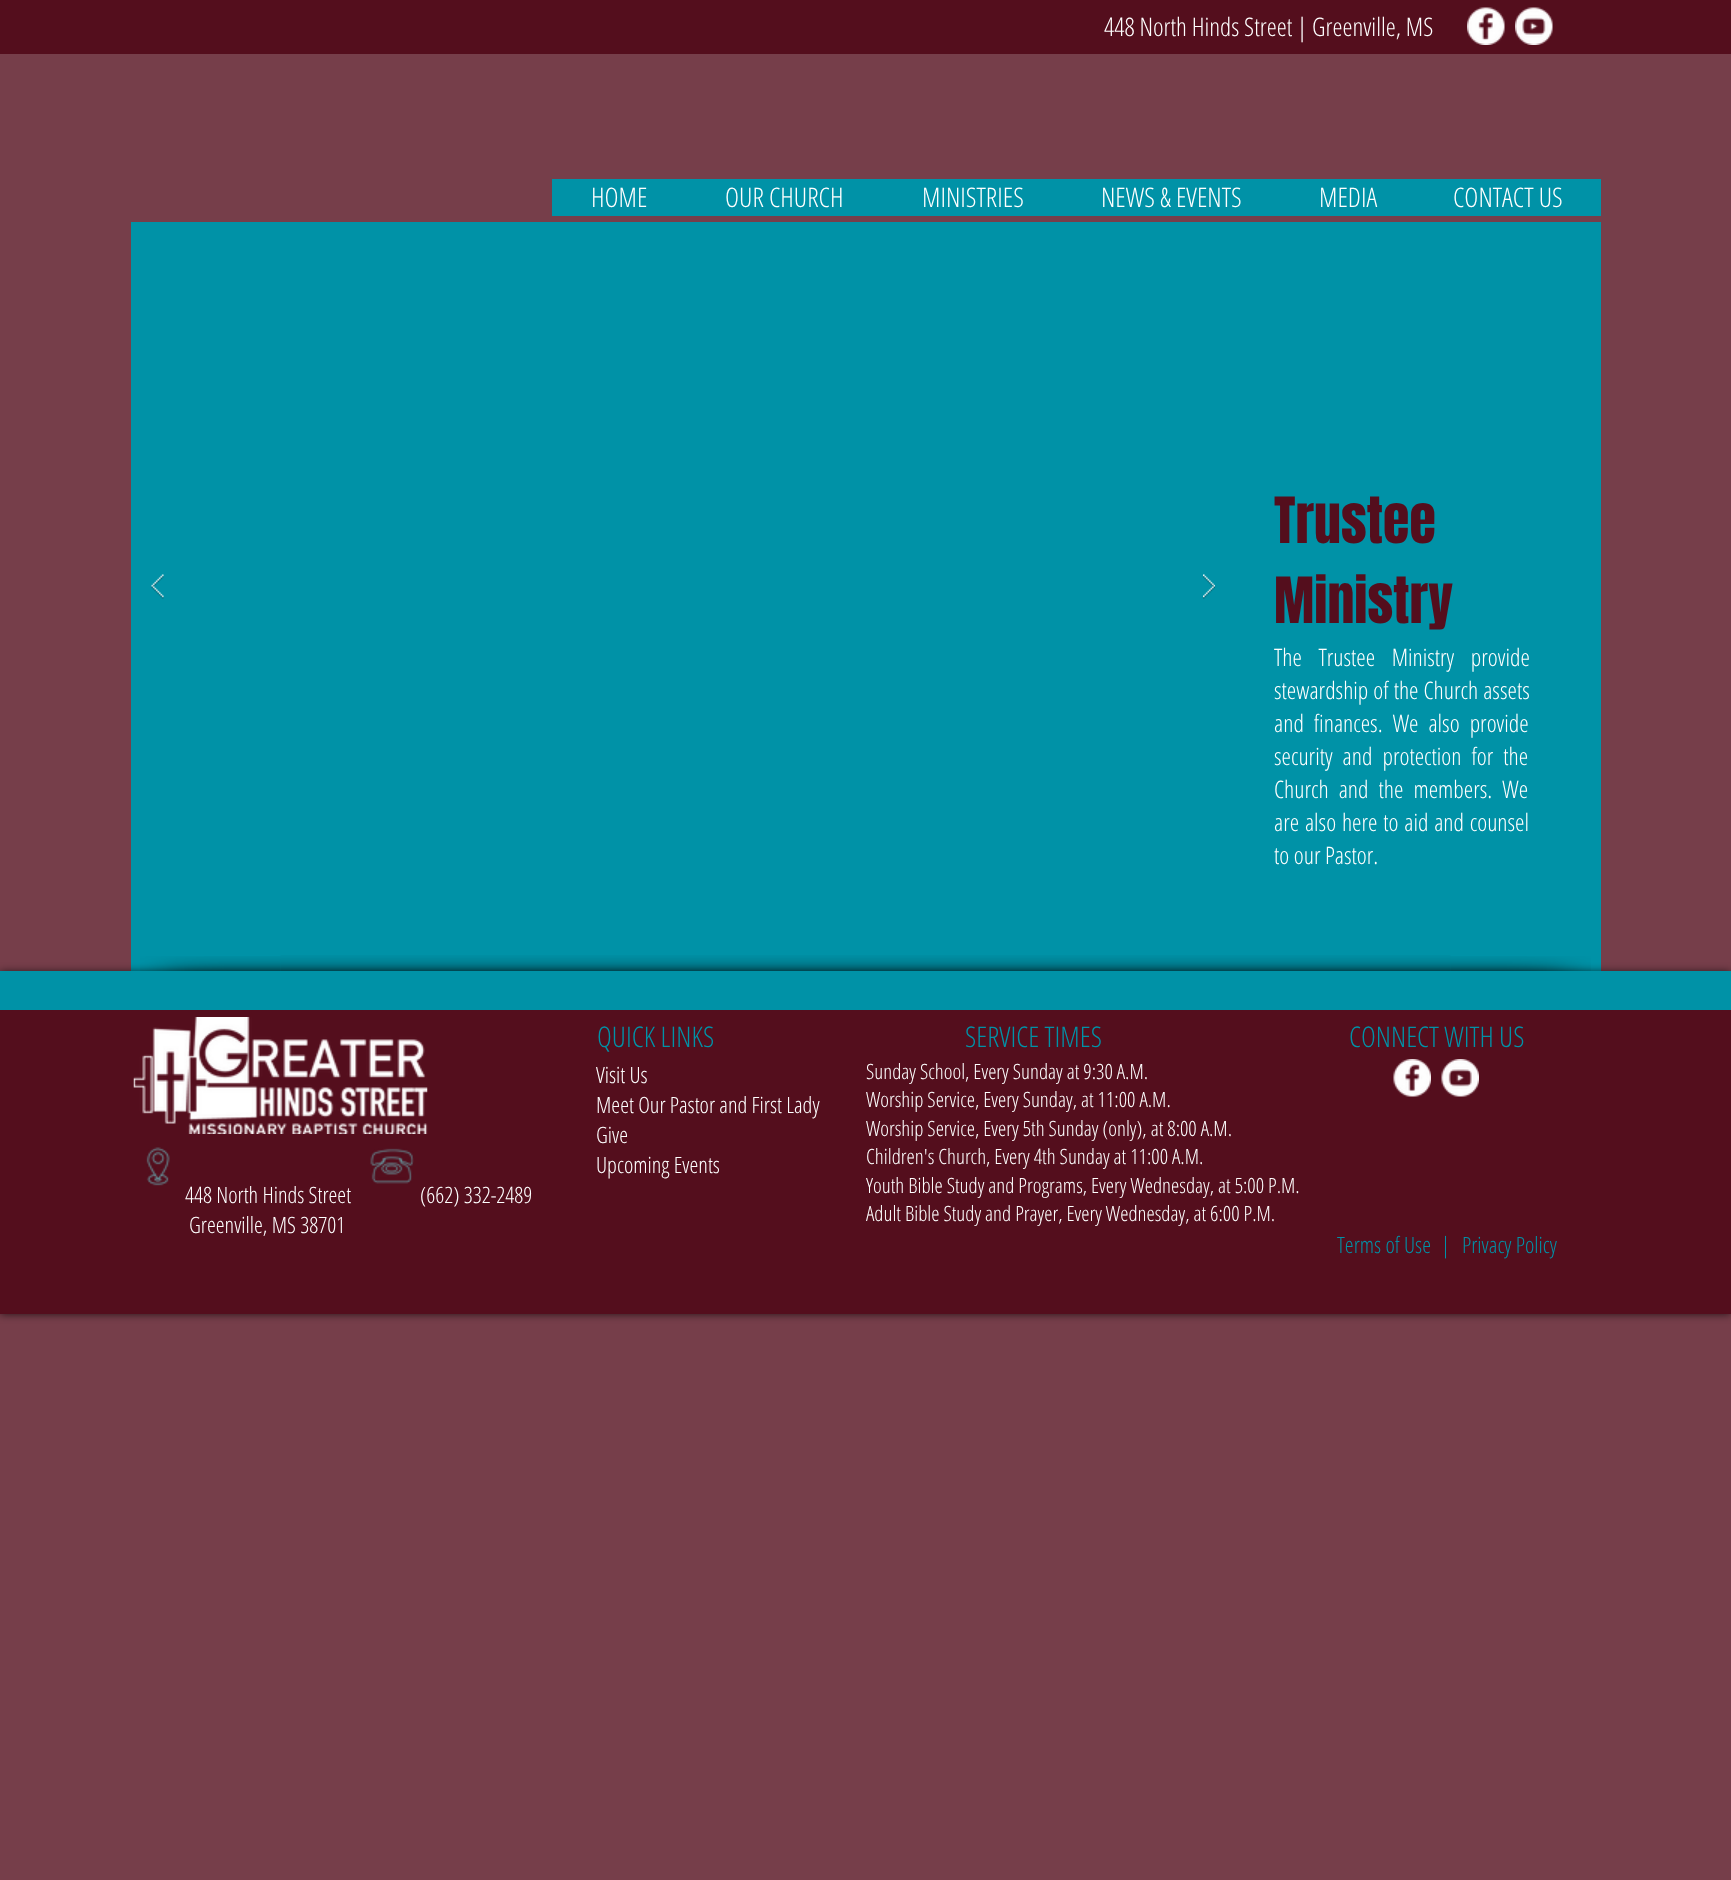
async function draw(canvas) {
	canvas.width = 1731;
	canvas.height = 1880;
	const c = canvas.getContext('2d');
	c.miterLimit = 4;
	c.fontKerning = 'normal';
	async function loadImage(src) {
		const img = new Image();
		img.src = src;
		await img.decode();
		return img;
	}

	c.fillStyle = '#763e4a';
	c.fillRect(0, 0, 1731, 1880);
	c.fillStyle = '#540e1d';
	c.fillRect(0, 0, 1731, 54);
	c.font = '300 25.5px Open Sans Condensed';
	c.fillStyle = '#fff';
	c.fillText('448 North Hinds Street | Greenville, MS', 1104, 36);
	c.drawImage(await loadImage('img1.png'), 1467, 7, 38, 38);
	c.drawImage(await loadImage('img2.png'), 1515, 7, 38, 38);
	c.fillStyle = '#0092a7';
	c.fillRect(552, 179, 1049, 37);
	c.font = '300 27px Open Sans Condensed';
	c.fillStyle = '#fff';
	for (const [text, x, y] of [
		['HOME', 591, 207],
		['OUR CHURCH', 725, 207],
		['MINISTRIES', 922, 207],
		['NEWS & EVENTS', 1101, 207],
		['MEDIA', 1319, 207],
		['CONTACT US', 1453, 207],
	]) {
		c.fillText(text, x, y);
	}
	c.fillStyle = '#0092a7';
	c.fillRect(131, 222, 1470, 749);
	c.drawImage(await loadImage('img3.png'), 151, 574, 13, 25);
	c.drawImage(await loadImage('img4.png'), 1203, 574, 12, 25);
	c.font = '54px Anton';
	c.fillStyle = '#540e1d';
	c.fillText('Trustee', 1274, 543);
	c.fillText('Ministry', 1274, 623);
	c.wordSpacing = '12px';
	c.font = '300 24px Open Sans Condensed';
	c.fillStyle = '#fff';
	c.fillText('The Trustee Ministry provide', 1274, 666);
	c.wordSpacing = '0.5px';
	c.fillText('stewardship of the Church assets', 1274, 699);
	c.wordSpacing = '5.5px';
	for (const [text, x, y] of [
		['and finances. We also provide', 1274, 732],
		['security and protection for the', 1274, 765],
		['Church and the members. We', 1274, 798],
	]) {
		c.fillText(text, x, y);
	}
	c.wordSpacing = '1.25px';
	c.fillText('are also here to aid and counsel', 1274, 831);
	c.wordSpacing = '0px';
	c.fillText('to our Pastor.', 1274, 864);
	c.fillStyle = '#000000b3';
	c.filter = 'blur(4px)';
	c.beginPath();
	c.rect(0, 972, 1731, 342);
	c.fill();
	c.filter = 'none';
	c.fillStyle = '#540e1d';
	c.fillRect(0, 1010, 1731, 304);
	c.drawImage(await loadImage('img5.png'), 140, 956, 141, 15);
	c.drawImage(await loadImage('img6.png'), 280, 955, 1171, 16);
	c.drawImage(await loadImage('img7.png'), 1450, 956, 141, 15);
	c.fillStyle = '#0092a7';
	c.fillRect(0, 971, 1731, 39);
	c.drawImage(await loadImage('img8.png'), 133, 1017, 295, 117);
	c.font = '300 28.5px Open Sans Condensed';
	for (const [text, x, y] of [
		['QUICK LINKS', 597, 1047],
		['SERVICE TIMES', 965, 1047],
		['CONNECT WITH US', 1349, 1047],
	]) {
		c.fillText(text, x, y);
	}
	c.drawImage(await loadImage('img9.png'), 146, 1147, 24, 39);
	c.drawImage(await loadImage('img10.png'), 370, 1148, 44, 36);
	c.font = '300 22.5px Open Sans Condensed';
	c.fillStyle = '#fff';
	for (const [text, x, y] of [
		['Visit Us', 596, 1083],
		['Meet Our Pastor and First Lady', 596, 1113],
		['Give', 596, 1143],
		['Upcoming Events', 596, 1173],
	]) {
		c.fillText(text, x, y);
	}
	c.font = '300 21px Open Sans Condensed';
	for (const [text, x, y] of [
		['Sunday School, Every Sunday at 9:30 A.M.', 866, 1079],
		['Worship Service, Every Sunday, at 11:00 A.M.', 866, 1107],
		['Worship Service, Every 5th Sunday (only), at 8:00 A.M.', 866, 1136],
		['Children\'s Church, Every 4th Sunday at 11:00 A.M.', 866, 1164],
		['Youth Bible Study and Programs, Every Wednesday, at 5:00 P.M.', 866, 1193],
		['Adult Bible Study and Prayer, Every Wednesday, at 6:00 P.M.', 866, 1221],
	]) {
		c.fillText(text, x, y);
	}
	c.drawImage(await loadImage('img11.png'), 1393, 1059, 38, 38);
	c.drawImage(await loadImage('img12.png'), 1441, 1059, 38, 38);
	c.font = '300 22.5px Open Sans Condensed';
	for (const [text, x, y] of [
		['448 North Hinds Street', 185, 1203],
		['Greenville, MS 38701', 189, 1233],
		['(662) 332-2489', 420, 1203],
	]) {
		c.fillText(text, x, y);
	}
	c.fillStyle = '#0092a7';
	for (const [text, x, y] of [
		['Terms of Use', 1337, 1253],
		['|', 1441, 1253],
		['Privacy Policy', 1462, 1253],
	]) {
		c.fillText(text, x, y);
	}
}

draw(document.querySelector('canvas'));
